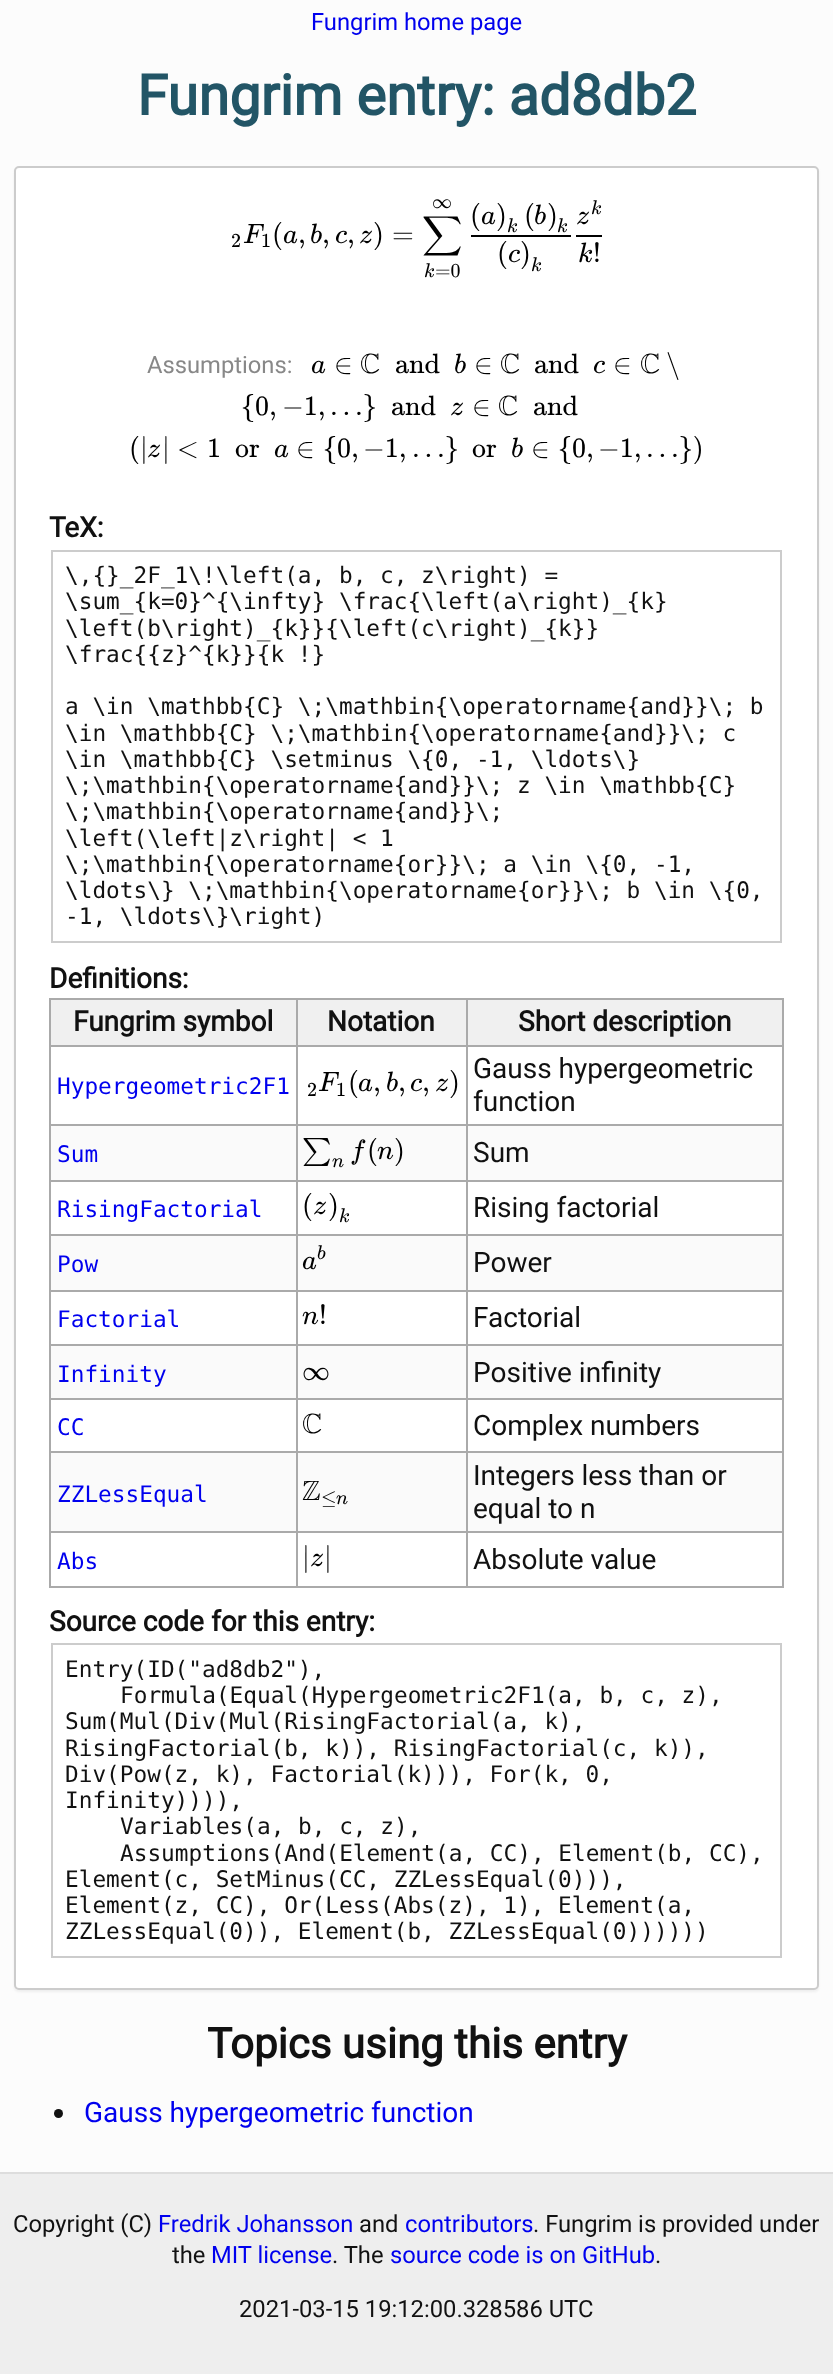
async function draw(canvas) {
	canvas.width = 833;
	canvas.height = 2374;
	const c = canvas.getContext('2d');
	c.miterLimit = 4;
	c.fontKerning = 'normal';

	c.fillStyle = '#eee';
	c.fillRect(0, 0, 833, 2374);
	c.fillStyle = '#fcfcfc';
	c.fillRect(0, 0, 833, 2172);
	c.font = '23.75px Roboto';
	c.fillStyle = '#00e';
	c.fillText('Fungrim home page', 311, 30);
	c.font = 'bold 56px Roboto';
	c.fillStyle = '#256';
	c.fillText('Fungrim entry: ad8db2', 137, 115);
	c.fillStyle = '#eee';
	c.filter = 'blur(1px)';
	c.beginPath();
	c.roundRect(14, 168, 805, 1824, 5);
	c.fill();
	c.filter = 'none';
	c.fillStyle = '#fff';
	c.beginPath();
	c.roundRect(15, 167, 803, 1822, 4);
	c.fill();
	c.strokeStyle = '#ccc';
	c.lineWidth = 2;
	c.stroke();
	c.font = '20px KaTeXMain';
	c.fillStyle = '#000';
	c.fillText('2', 231, 247);
	c.font = 'italic 28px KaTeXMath';
	c.fillText('F', 243, 243);
	c.font = '20px KaTeXMain';
	c.fillText('1', 261, 247);
	c.font = '28px KaTeXMain';
	c.fillText('(', 272, 243);
	c.font = 'italic 28px KaTeXMath';
	c.fillText('a', 283, 243);
	c.font = '28px KaTeXMain';
	c.fillText(',', 298, 243);
	c.font = 'italic 28px KaTeXMath';
	c.fillText('b', 310, 243);
	c.font = '28px KaTeXMain';
	c.fillText(',', 322, 243);
	c.font = 'italic 28px KaTeXMath';
	c.fillText('c', 335, 243);
	c.font = '28px KaTeXMain';
	c.fillText(',', 347, 243);
	c.font = 'italic 28px KaTeXMath';
	c.fillText('z', 359, 243);
	c.font = '28px KaTeXMain';
	c.fillText(')', 373, 243);
	c.fillText('=', 392, 243);
	c.font = '20px KaTeXMain';
	c.fillText('∞', 432, 208);
	c.font = '28px "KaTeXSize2"';
	c.fillText('∑', 422, 243);
	c.font = 'italic 20px KaTeXMath';
	c.fillText('k', 424, 277);
	c.font = '20px KaTeXMain';
	c.fillText('=0', 435, 277);
	c.font = '28px KaTeXMain';
	c.fillText('(', 470, 224);
	c.font = 'italic 28px KaTeXMath';
	c.fillText('a', 481, 224);
	c.font = '28px KaTeXMain';
	c.fillText(')', 496, 224);
	c.font = 'italic 20px KaTeXMath';
	c.fillText('k', 507, 232);
	c.font = '28px KaTeXMain';
	c.fillText('(', 524, 224);
	c.font = 'italic 28px KaTeXMath';
	c.fillText('b', 534, 224);
	c.font = '28px KaTeXMain';
	c.fillText(')', 547, 224);
	c.font = 'italic 20px KaTeXMath';
	c.fillText('k', 557, 232);
	c.fillRect(471, 235, 100, 2);
	c.font = '28px KaTeXMain';
	c.fillText('(', 497, 262);
	c.font = 'italic 28px KaTeXMath';
	c.fillText('c', 508, 262);
	c.font = '28px KaTeXMain';
	c.fillText(')', 520, 262);
	c.font = 'italic 20px KaTeXMath';
	c.fillText('k', 531, 271);
	c.fillText('k', 591, 214);
	c.font = 'italic 28px KaTeXMath';
	c.fillText('z', 576, 224);
	c.fillRect(576, 235, 26, 2);
	c.fillText('k', 578, 262);
	c.font = '28px KaTeXMain';
	c.fillText('!', 593, 262);
	c.font = 'italic 28px KaTeXMath';
	c.fillText('a', 311, 373);
	c.font = '28px KaTeXMain';
	c.fillText('∈', 334, 373);
	c.font = '28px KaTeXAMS';
	c.fillText('C', 360, 373);
	c.font = '28px KaTeXMain';
	c.fillText('and', 395, 373);
	c.font = 'italic 28px KaTeXMath';
	c.fillText('b', 454, 373);
	c.font = '28px KaTeXMain';
	c.fillText('∈', 474, 373);
	c.font = '28px KaTeXAMS';
	c.fillText('C', 500, 373);
	c.font = '28px KaTeXMain';
	c.fillText('and', 534, 373);
	c.font = 'italic 28px KaTeXMath';
	c.fillText('c', 593, 373);
	c.font = '28px KaTeXMain';
	c.fillText('∈', 613, 373);
	c.font = '28px KaTeXAMS';
	c.fillText('C', 640, 373);
	c.font = '28px KaTeXMain';
	for (const [text, x, y] of [
		['∖', 666, 373],
		['{0,', 241, 415],
		['−1,', 282, 415],
		['…}', 330, 415],
		['and', 391, 415],
	]) {
		c.fillText(text, x, y);
	}
	c.font = 'italic 28px KaTeXMath';
	c.fillText('z', 450, 415);
	c.font = '28px KaTeXMain';
	c.fillText('∈', 472, 415);
	c.font = '28px KaTeXAMS';
	c.fillText('C', 498, 415);
	c.font = '28px KaTeXMain';
	c.fillText('and', 533, 415);
	c.fillText('(∣', 129, 457);
	c.font = 'italic 28px KaTeXMath';
	c.fillText('z', 147, 457);
	c.font = '28px KaTeXMain';
	for (const [text, x, y] of [
		['∣', 162, 457],
		['<', 177, 457],
		['1', 207, 457],
		['or', 235, 457],
	]) {
		c.fillText(text, x, y);
	}
	c.font = 'italic 28px KaTeXMath';
	c.fillText('a', 274, 457);
	c.font = '28px KaTeXMain';
	for (const [text, x, y] of [
		['∈', 296, 457],
		['{0,', 323, 457],
		['−1,', 363, 457],
		['…}', 412, 457],
		['or', 472, 457],
	]) {
		c.fillText(text, x, y);
	}
	c.font = 'italic 28px KaTeXMath';
	c.fillText('b', 511, 457);
	c.font = '28px KaTeXMain';
	for (const [text, x, y] of [
		['∈', 531, 457],
		['{0,', 558, 457],
		['−1,', 598, 457],
		['…})', 646, 457],
	]) {
		c.fillText(text, x, y);
	}
	c.font = '23.75px Roboto';
	c.fillStyle = '#888';
	c.fillText('Assumptions:', 147, 373);
	c.font = 'bold 28px Roboto';
	c.fillStyle = '#111';
	c.fillText('TeX:', 49, 537);
	c.strokeRect(52, 551, 729, 391);
	c.font = '22.75px DejaVu Sans Mono';
	for (const [text, x, y] of [
		['\\,{}_2F_1\\!\\left(a, b, c, z\\right) =', 65, 583],
		['\\sum_{k=0}^{\\infty} \\frac{\\left(a\\right)_{k}', 65, 609],
		['\\left(b\\right)_{k}}{\\left(c\\right)_{k}}', 65, 636],
		['\\frac{{z}^{k}}{k !}', 65, 662],
		['a \\in \\mathbb{C} \\;\\mathbin{\\operatorname{and}}\\; b', 65, 714],
		['\\in \\mathbb{C} \\;\\mathbin{\\operatorname{and}}\\; c', 65, 741],
		['\\in \\mathbb{C} \\setminus \\{0, -1, \\ldots\\}', 65, 767],
		['\\;\\mathbin{\\operatorname{and}}\\; z \\in \\mathbb{C}', 65, 793],
		['\\;\\mathbin{\\operatorname{and}}\\;', 65, 819],
		['\\left(\\left|z\\right| < 1', 65, 846],
		['\\;\\mathbin{\\operatorname{or}}\\; a \\in \\{0, -1,', 65, 872],
		['\\ldots\\} \\;\\mathbin{\\operatorname{or}}\\; b \\in \\{0,', 65, 898],
		['-1, \\ldots\\}\\right)', 65, 924],
	]) {
		c.fillText(text, x, y);
	}
	c.font = 'bold 28px Roboto';
	c.fillText('Definitions:', 49, 988);
	for (const [x, y, w, h, color] of [
		[49, 998, 735, 2, '#aaa'],
		[782, 998, 2, 589, '#aaa'],
		[49, 1586, 735, 2, '#aaa'],
		[49, 998, 2, 589, '#aaa'],
		[51, 1000, 245, 45, '#f0f0f0'],
	]) {
		c.fillStyle = color;
		c.fillRect(x, y, w, h);
	}
	c.fillStyle = '#111';
	c.fillText('Fungrim symbol', 73, 1031);
	for (const [x, y, w, h, color] of [
		[298, 1000, 168, 45, '#f0f0f0'],
		[466, 1045, 318, 2, '#aaa'],
		[466, 1124, 318, 2, '#aaa'],
		[51, 1126, 731, 54, '#fafafa'],
		[466, 1180, 318, 2, '#aaa'],
		[466, 1234, 318, 2, '#aaa'],
		[51, 1236, 731, 54, '#fafafa'],
		[466, 1290, 318, 2, '#aaa'],
		[466, 1344, 318, 2, '#aaa'],
		[51, 1346, 731, 52, '#fafafa'],
		[466, 1398, 318, 2, '#aaa'],
		[466, 1451, 318, 2, '#aaa'],
		[51, 1453, 731, 78, '#fafafa'],
		[466, 1531, 318, 2, '#aaa'],
		[466, 1531, 2, 56, '#aaa'],
		[296, 1531, 171, 2, '#aaa'],
		[466, 1451, 2, 82, '#aaa'],
		[296, 1451, 171, 2, '#aaa'],
		[466, 1398, 2, 55, '#aaa'],
		[296, 1398, 171, 2, '#aaa'],
		[466, 1344, 2, 56, '#aaa'],
		[296, 1344, 171, 2, '#aaa'],
		[466, 1290, 2, 56, '#aaa'],
		[296, 1290, 171, 2, '#aaa'],
		[466, 1234, 2, 58, '#aaa'],
		[296, 1234, 171, 2, '#aaa'],
		[466, 1180, 2, 56, '#aaa'],
		[296, 1180, 171, 2, '#aaa'],
		[466, 1124, 2, 57, '#aaa'],
		[296, 1124, 171, 2, '#aaa'],
		[466, 1045, 2, 80, '#aaa'],
		[296, 1045, 171, 2, '#aaa'],
		[296, 1531, 2, 56, '#aaa'],
		[49, 1531, 249, 2, '#aaa'],
		[296, 1451, 2, 82, '#aaa'],
		[49, 1451, 249, 2, '#aaa'],
		[296, 1398, 2, 55, '#aaa'],
		[49, 1398, 249, 2, '#aaa'],
		[296, 1344, 2, 56, '#aaa'],
		[49, 1344, 249, 2, '#aaa'],
		[296, 1290, 2, 56, '#aaa'],
		[49, 1290, 249, 2, '#aaa'],
		[296, 1234, 2, 58, '#aaa'],
		[49, 1234, 249, 2, '#aaa'],
		[296, 1180, 2, 56, '#aaa'],
		[49, 1180, 249, 2, '#aaa'],
		[296, 1124, 2, 57, '#aaa'],
		[49, 1124, 249, 2, '#aaa'],
		[296, 1045, 2, 80, '#aaa'],
		[49, 1045, 249, 2, '#aaa'],
		[296, 998, 2, 49, '#aaa'],
	]) {
		c.fillStyle = color;
		c.fillRect(x, y, w, h);
	}
	c.fillStyle = '#111';
	c.fillText('Notation', 327, 1031);
	c.fillStyle = '#f0f0f0';
	c.fillRect(468, 1000, 314, 45);
	c.fillStyle = '#aaa';
	c.fillRect(466, 998, 2, 49);
	c.fillStyle = '#111';
	c.fillText('Short description', 518, 1031);
	c.font = '22.75px DejaVu Sans Mono';
	c.fillStyle = '#00e';
	c.fillText('Hypergeometric2F1', 57, 1094);
	c.font = '20px KaTeXMain';
	c.fillStyle = '#000';
	c.fillText('2', 307, 1096);
	c.font = 'italic 28px KaTeXMath';
	c.fillText('F', 318, 1091);
	c.font = '20px KaTeXMain';
	c.fillText('1', 336, 1096);
	c.font = '28px KaTeXMain';
	c.fillText('(', 348, 1091);
	c.font = 'italic 28px KaTeXMath';
	c.fillText('a', 358, 1091);
	c.font = '28px KaTeXMain';
	c.fillText(',', 373, 1091);
	c.font = 'italic 28px KaTeXMath';
	c.fillText('b', 386, 1091);
	c.font = '28px KaTeXMain';
	c.fillText(',', 398, 1091);
	c.font = 'italic 28px KaTeXMath';
	c.fillText('c', 410, 1091);
	c.font = '28px KaTeXMain';
	c.fillText(',', 422, 1091);
	c.font = 'italic 28px KaTeXMath';
	c.fillText('z', 435, 1091);
	c.font = '28px KaTeXMain';
	c.fillText(')', 449, 1091);
	c.font = '28px Roboto';
	c.fillStyle = '#111';
	c.fillText('Gauss hypergeometric', 473, 1078);
	c.fillText('function', 473, 1111);
	c.font = '22.75px DejaVu Sans Mono';
	c.fillStyle = '#00e';
	c.fillText('Sum', 57, 1162);
	c.font = '28px "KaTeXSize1"';
	c.fillStyle = '#000';
	c.fillText('∑', 302, 1159);
	c.font = 'italic 20px KaTeXMath';
	c.fillText('n', 332, 1167);
	c.font = 'italic 28px KaTeXMath';
	c.fillText('f', 350, 1159);
	c.font = '28px KaTeXMain';
	c.fillText('(', 367, 1159);
	c.font = 'italic 28px KaTeXMath';
	c.fillText('n', 377, 1159);
	c.font = '28px KaTeXMain';
	c.fillText(')', 394, 1159);
	c.font = '28px Roboto';
	c.fillStyle = '#111';
	c.fillText('Sum', 473, 1162);
	c.font = '22.75px DejaVu Sans Mono';
	c.fillStyle = '#00e';
	c.fillText('RisingFactorial', 57, 1217);
	c.font = '28px KaTeXMain';
	c.fillStyle = '#000';
	c.fillText('(', 302, 1214);
	c.font = 'italic 28px KaTeXMath';
	c.fillText('z', 313, 1214);
	c.font = '28px KaTeXMain';
	c.fillText(')', 328, 1214);
	c.font = 'italic 20px KaTeXMath';
	c.fillText('k', 339, 1222);
	c.font = '28px Roboto';
	c.fillStyle = '#111';
	c.fillText('Rising factorial', 473, 1217);
	c.font = '22.75px DejaVu Sans Mono';
	c.fillStyle = '#00e';
	c.fillText('Pow', 57, 1272);
	c.font = 'italic 20px KaTeXMath';
	c.fillStyle = '#000';
	c.fillText('b', 317, 1259);
	c.font = 'italic 28px KaTeXMath';
	c.fillText('a', 302, 1269);
	c.font = '28px Roboto';
	c.fillStyle = '#111';
	c.fillText('Power', 473, 1272);
	c.font = '22.75px DejaVu Sans Mono';
	c.fillStyle = '#00e';
	c.fillText('Factorial', 57, 1327);
	c.font = 'italic 28px KaTeXMath';
	c.fillStyle = '#000';
	c.fillText('n', 302, 1324);
	c.font = '28px KaTeXMain';
	c.fillText('!', 319, 1324);
	c.font = '28px Roboto';
	c.fillStyle = '#111';
	c.fillText('Factorial', 473, 1327);
	c.font = '22.75px DejaVu Sans Mono';
	c.fillStyle = '#00e';
	c.fillText('Infinity', 57, 1382);
	c.font = '28px KaTeXMain';
	c.fillStyle = '#000';
	c.fillText('∞', 302, 1380);
	c.font = '28px Roboto';
	c.fillStyle = '#111';
	c.fillText('Positive infinity', 473, 1382);
	c.font = '22.75px DejaVu Sans Mono';
	c.fillStyle = '#00e';
	c.fillText('CC', 57, 1435);
	c.font = '28px KaTeXAMS';
	c.fillStyle = '#000';
	c.fillText('C', 302, 1433);
	c.font = '28px Roboto';
	c.fillStyle = '#111';
	c.fillText('Complex numbers', 473, 1435);
	c.font = '22.75px DejaVu Sans Mono';
	c.fillStyle = '#00e';
	c.fillText('ZZLessEqual', 57, 1502);
	c.font = '28px KaTeXAMS';
	c.fillStyle = '#000';
	c.fillText('Z', 302, 1500);
	c.font = '20px KaTeXMain';
	c.fillText('≤', 321, 1504);
	c.font = 'italic 20px KaTeXMath';
	c.fillText('n', 336, 1504);
	c.font = '28px Roboto';
	c.fillStyle = '#111';
	c.fillText('Integers less than or', 473, 1485);
	c.fillText('equal to n', 473, 1518);
	c.font = '22.75px DejaVu Sans Mono';
	c.fillStyle = '#00e';
	c.fillText('Abs', 57, 1569);
	c.font = '28px KaTeXMain';
	c.fillStyle = '#000';
	c.fillText('∣', 302, 1566);
	c.font = 'italic 28px KaTeXMath';
	c.fillText('z', 310, 1566);
	c.font = '28px KaTeXMain';
	c.fillText('∣', 324, 1566);
	c.font = '28px Roboto';
	c.fillStyle = '#111';
	c.fillText('Absolute value', 473, 1569);
	c.font = 'bold 28px Roboto';
	c.fillText('Source code for this entry:', 49, 1631);
	c.strokeRect(52, 1644, 729, 313);
	c.font = '22.75px DejaVu Sans Mono';
	for (const [text, x, y] of [
		['Entry(ID("ad8db2"),', 65, 1677],
		['Formula(Equal(Hypergeometric2F1(a, b, c, z),', 120, 1703],
		['Sum(Mul(Div(Mul(RisingFactorial(a, k),', 65, 1729],
		['RisingFactorial(b, k)), RisingFactorial(c, k)),', 65, 1756],
		['Div(Pow(z, k), Factorial(k))), For(k, 0,', 65, 1782],
		['Infinity)))),', 65, 1808],
		['Variables(a, b, c, z),', 120, 1834],
		['Assumptions(And(Element(a, CC), Element(b, CC),', 120, 1861],
		['Element(c, SetMinus(CC, ZZLessEqual(0))),', 65, 1887],
		['Element(z, CC), Or(Less(Abs(z), 1), Element(a,', 65, 1913],
		['ZZLessEqual(0)), Element(b, ZZLessEqual(0))))))', 65, 1939],
	]) {
		c.fillText(text, x, y);
	}
	c.font = 'bold 42px Roboto';
	c.fillText('Topics using this entry', 207, 2058);
	c.beginPath();
	c.arc(58.5, 2113.5, 4.5, 0, 2 * Math.PI);
	c.fill();
	c.font = '28px Roboto';
	c.fillStyle = '#00e';
	c.fillText('Gauss hypergeometric function', 84, 2122);
	c.fillStyle = '#ddd';
	c.fillRect(0, 2172, 833, 2);
	c.font = '23.75px Roboto';
	c.fillStyle = '#111';
	c.fillText('Copyright (C)', 13, 2232);
	c.fillStyle = '#00e';
	c.fillText('Fredrik Johansson', 158, 2232);
	c.fillStyle = '#111';
	c.fillText('and', 359, 2232);
	c.fillStyle = '#00e';
	c.fillText('contributors', 405, 2232);
	c.fillStyle = '#111';
	c.fillText('. Fungrim is provided under', 533, 2232);
	c.fillText('the', 172, 2263);
	c.fillStyle = '#00e';
	c.fillText('MIT license', 211, 2263);
	c.fillStyle = '#111';
	c.fillText('. The', 332, 2263);
	c.fillStyle = '#00e';
	c.fillText('source code is on GitHub', 390, 2263);
	c.fillStyle = '#111';
	c.fillText('.', 655, 2263);
	c.fillText('2021-03-15 19:12:00.328586 UTC', 239, 2317);
}

draw(document.querySelector('canvas'));
